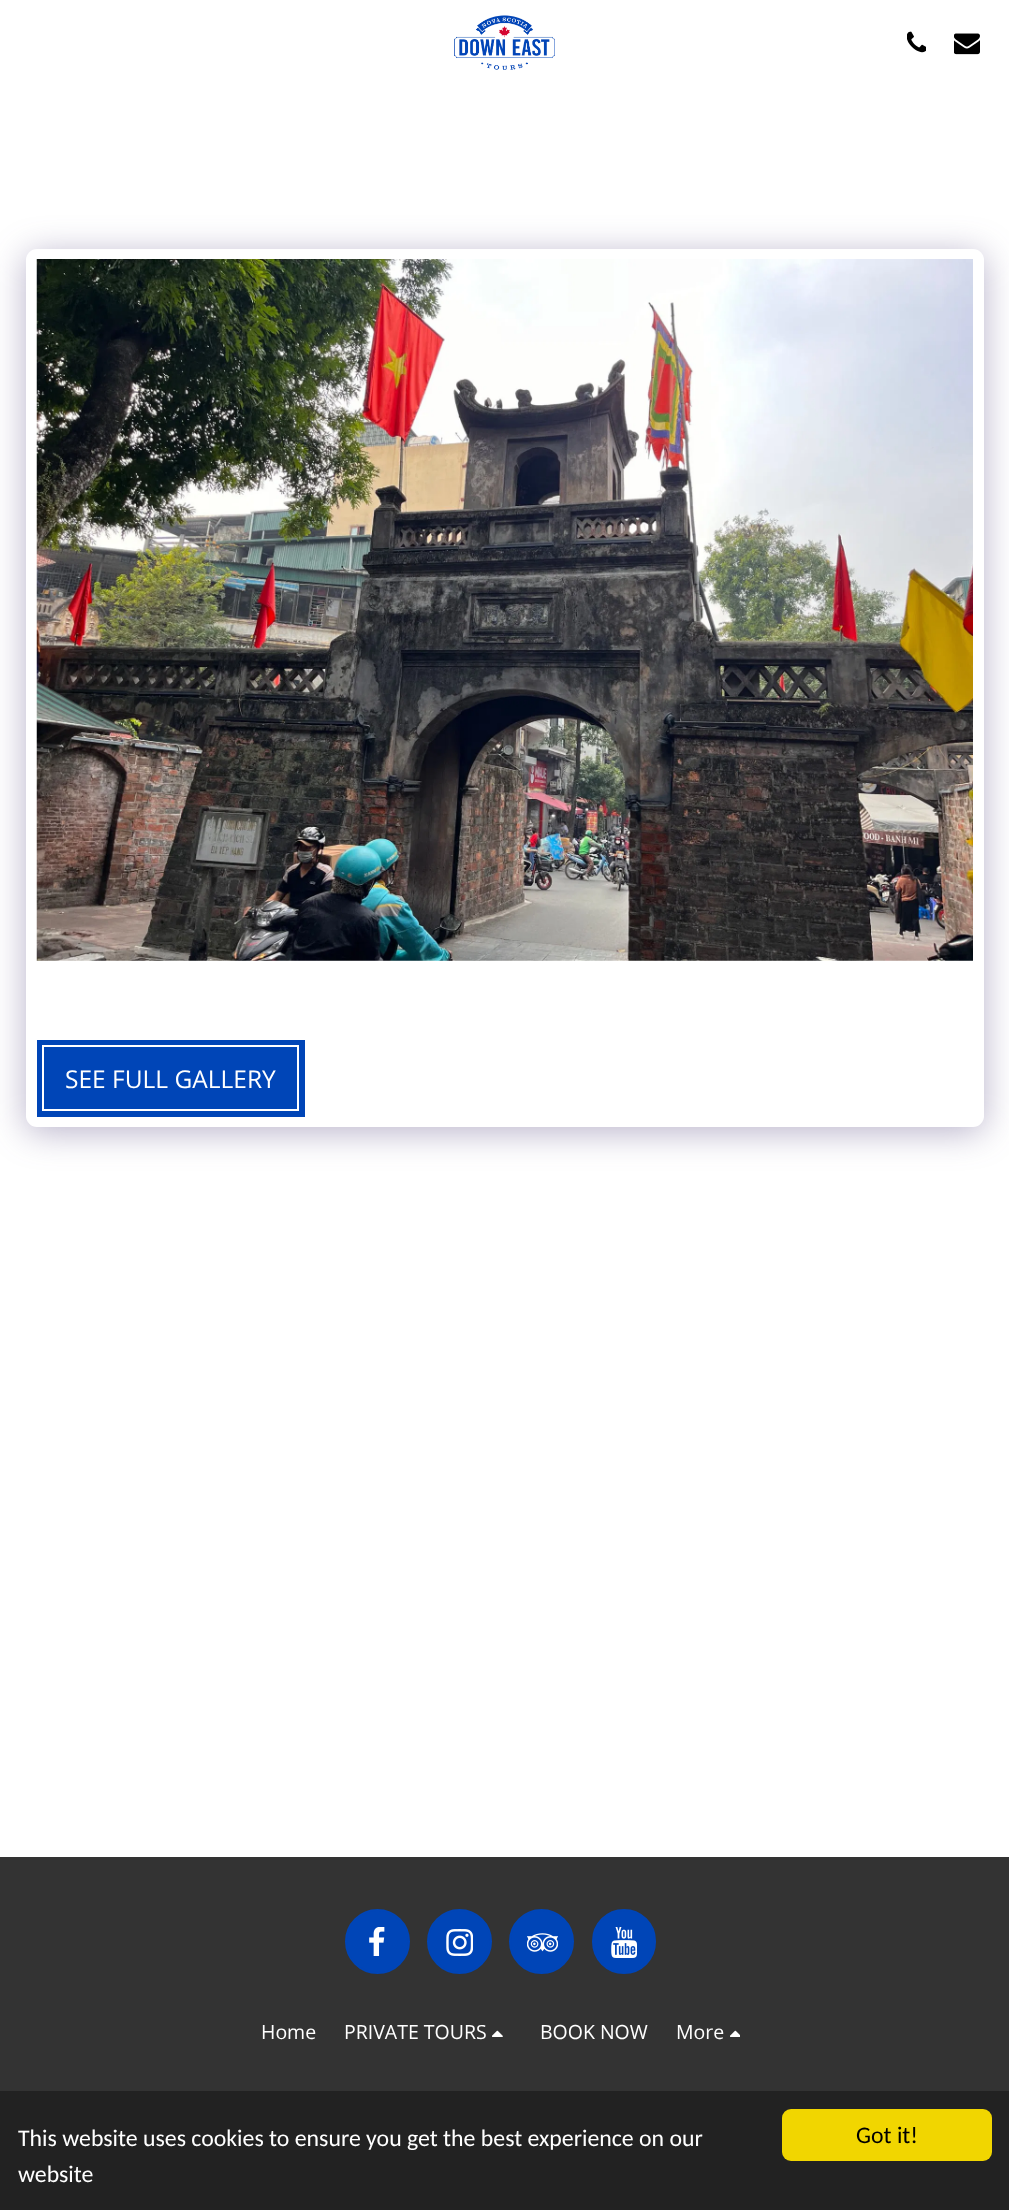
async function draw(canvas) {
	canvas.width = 1009;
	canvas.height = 2210;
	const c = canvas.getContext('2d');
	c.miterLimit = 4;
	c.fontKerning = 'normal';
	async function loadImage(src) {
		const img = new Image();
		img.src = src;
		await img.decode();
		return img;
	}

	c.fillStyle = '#fff';
	c.fillRect(0, 0, 1009, 2210);
	c.drawImage(await loadImage('img1.png'), 454, 15, 101, 55);
	c.drawImage(await loadImage('img2.png'), 907, 31, 19, 22);
	c.drawImage(await loadImage('img3.png'), 954, 33, 26, 22);
	c.fillStyle = '#4d3f7a66';
	c.filter = 'blur(17.5px)';
	c.beginPath();
	c.roundRect(26, 254, 958, 878, 11);
	c.fill();
	c.filter = 'none';
	c.fillStyle = '#fff';
	c.beginPath();
	c.roundRect(26, 249, 958, 878, 11);
	c.fill();
	c.drawImage(await loadImage('img4.png'), 36, 259, 937, 702);
	c.fillStyle = '#0045b7';
	c.fillRect(37, 1040, 268, 77);
	c.strokeStyle = '#fff';
	c.lineWidth = 2;
	c.strokeRect(43, 1046, 255, 64);
	c.font = '24.5px Open Sans';
	c.fillStyle = '#fff';
	c.fillText('SEE FULL GALLERY', 65, 1088);
	c.fillStyle = '#333';
	c.fillRect(0, 1857, 1009, 234);
	c.fillStyle = '#0045b7';
	c.beginPath();
	c.arc(377.5, 1941.5, 31.5, 0, 2 * Math.PI);
	c.fill();
	c.strokeStyle = '#0045b7';
	c.stroke();
	c.drawImage(await loadImage('img5.png'), 369, 1927, 16, 29);
	c.beginPath();
	c.arc(459.5, 1941.5, 31.5, 0, 2 * Math.PI);
	c.fill();
	c.stroke();
	c.drawImage(await loadImage('img6.png'), 446, 1929, 27, 27);
	c.beginPath();
	c.arc(541.5, 1941.5, 31.5, 0, 2 * Math.PI);
	c.fill();
	c.stroke();
	c.drawImage(await loadImage('img7.png'), 527, 1933, 31, 19);
	c.beginPath();
	c.roundRect(593, 1910, 62, 63, 31);
	c.fill();
	c.stroke();
	c.drawImage(await loadImage('img8.png'), 611, 1927, 26, 31);
	c.font = '19.5px Open Sans';
	c.fillStyle = '#fff';
	c.fillText('Home', 261, 2039);
	c.fillText('PRIVATE TOURS', 344, 2039);
	c.drawImage(await loadImage('img9.png'), 492, 2030, 11, 7);
	c.fillText('BOOK NOW', 540, 2039);
	c.fillText('More', 676, 2039);
	c.drawImage(await loadImage('img10.png'), 730, 2030, 10, 7);
	c.fillStyle = '#222';
	c.fillRect(0, 2091, 1009, 119);
	c.font = '23.8px Carlito';
	c.fillStyle = '#fff';
	c.fillText('This website uses cookies to ensure you get the best experience on our', 18, 2146);
	c.fillText('website', 18, 2182);
	c.fillStyle = '#f1d600';
	c.beginPath();
	c.roundRect(782, 2109, 210, 52, 9);
	c.fill();
	c.fillStyle = '#000';
	c.fillText('Got it!', 856, 2143);
}

draw(document.querySelector('canvas'));
